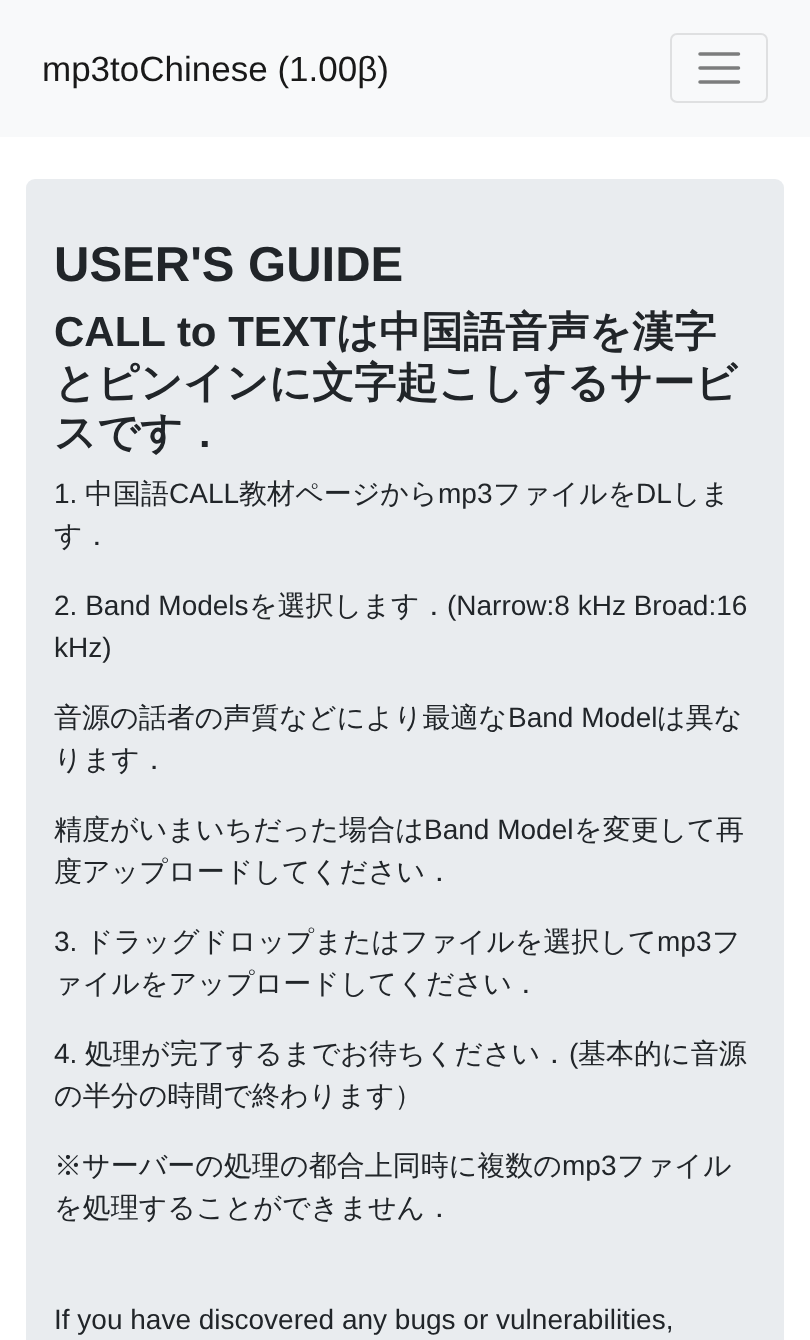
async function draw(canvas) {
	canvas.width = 810;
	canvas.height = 1340;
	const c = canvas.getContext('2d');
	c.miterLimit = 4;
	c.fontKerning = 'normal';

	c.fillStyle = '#fff';
	c.fillRect(0, 0, 810, 1340);
	c.fillStyle = '#f8f9fa';
	c.fillRect(0, 0, 810, 137);
	c.font = '35px Liberation Sans';
	c.fillStyle = '#191919';
	c.fillText('mp3toChinese (1.00β)', 42, 81);
	c.beginPath();
	c.roundRect(671, 34, 96, 68, 6);
	c.strokeStyle = '#dfe0e1';
	c.lineWidth = 2;
	c.stroke();
	c.beginPath();
	c.moveTo(700, 54);
	c.lineTo(738.5, 54);
	c.moveTo(700, 68);
	c.lineTo(738.5, 68);
	c.moveTo(700, 82);
	c.lineTo(738.5, 82);
	c.strokeStyle = '#7c7d7d';
	c.lineWidth = 3.5;
	c.lineCap = 'round';
	c.stroke();
	c.fillStyle = '#e9ecef';
	c.beginPath();
	c.roundRect(26, 179, 758, 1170, 9);
	c.fill();
	c.font = 'bold 49px Liberation Sans';
	c.fillStyle = '#212529';
	c.fillText('USER\'S GUIDE', 54, 281);
	c.font = 'bold 42px Liberation Sans';
	c.fillText('CALL to TEXT', 54, 346);
	c.font = 'bold 42px WenQuanYi Zen Hei';
	for (const [text, x, y] of [
		['は中国語音声を漢字', 336, 346],
		['とピンインに文字起こしするサービ', 54, 397],
		['スです．', 54, 447],
	]) {
		c.fillText(text, x, y);
	}
	c.font = '28px Liberation Sans';
	c.fillText('1.', 54, 503);
	c.font = '500 28px WenQuanYi Zen Hei';
	c.fillText('中国語', 85, 503);
	c.font = '28px Liberation Sans';
	c.fillText('CALL', 169, 503);
	c.font = '500 28px WenQuanYi Zen Hei';
	c.fillText('教材ページから', 239, 503);
	c.font = '28px Liberation Sans';
	c.fillText('mp3', 438, 503);
	c.font = '500 28px WenQuanYi Zen Hei';
	c.fillText('ファイルを', 493, 503);
	c.font = '28px Liberation Sans';
	c.fillText('DL', 636, 503);
	c.font = '500 28px WenQuanYi Zen Hei';
	c.fillText('しま', 672, 503);
	c.fillText('す．', 54, 545);
	c.font = '28px Liberation Sans';
	c.fillText('2. Band Models', 54, 615);
	c.font = '500 28px WenQuanYi Zen Hei';
	c.fillText('を選択します．', 249, 615);
	c.font = '28px Liberation Sans';
	c.fillText('(Narrow:8 kHz Broad:16', 447, 615);
	c.fillText('kHz)', 54, 657);
	c.font = '500 28px WenQuanYi Zen Hei';
	c.fillText('音源の話者の声質などにより最適な', 54, 727);
	c.font = '28px Liberation Sans';
	c.fillText('Band Model', 508, 727);
	c.font = '500 28px WenQuanYi Zen Hei';
	for (const [text, x, y] of [
		['は異な', 657, 727],
		['ります．', 54, 769],
		['精度がいまいちだった場合は', 54, 839],
	]) {
		c.fillText(text, x, y);
	}
	c.font = '28px Liberation Sans';
	c.fillText('Band Model', 424, 839);
	c.font = '500 28px WenQuanYi Zen Hei';
	c.fillText('を変更して再', 574, 839);
	c.fillText('度アップロードしてください．', 54, 881);
	c.font = '28px Liberation Sans';
	c.fillText('3.', 54, 951);
	c.font = '500 28px WenQuanYi Zen Hei';
	c.fillText('ドラッグドロップまたはファイルを選択して', 85, 951);
	c.font = '28px Liberation Sans';
	c.fillText('mp3', 657, 951);
	c.font = '500 28px WenQuanYi Zen Hei';
	c.fillText('フ', 712, 951);
	c.fillText('ァイルをアップロードしてください．', 54, 993);
	c.font = '28px Liberation Sans';
	c.fillText('4.', 54, 1063);
	c.font = '500 28px WenQuanYi Zen Hei';
	c.fillText('処理が完了するまでお待ちください．', 85, 1063);
	c.font = '28px Liberation Sans';
	c.fillText('(', 569, 1063);
	c.font = '500 28px WenQuanYi Zen Hei';
	for (const [text, x, y] of [
		['基本的に音源', 578, 1063],
		['の半分の時間で終わります）', 54, 1105],
		['※サーバーの処理の都合上同時に複数の', 54, 1175],
	]) {
		c.fillText(text, x, y);
	}
	c.font = '28px Liberation Sans';
	c.fillText('mp3', 562, 1175);
	c.font = '500 28px WenQuanYi Zen Hei';
	c.fillText('ファイル', 617, 1175);
	c.fillText('を処理することができません．', 54, 1217);
	c.font = '28px Liberation Sans';
	c.fillText('If you have discovered any bugs or vulnerabilities,', 54, 1329);
}

draw(document.querySelector('canvas'));
